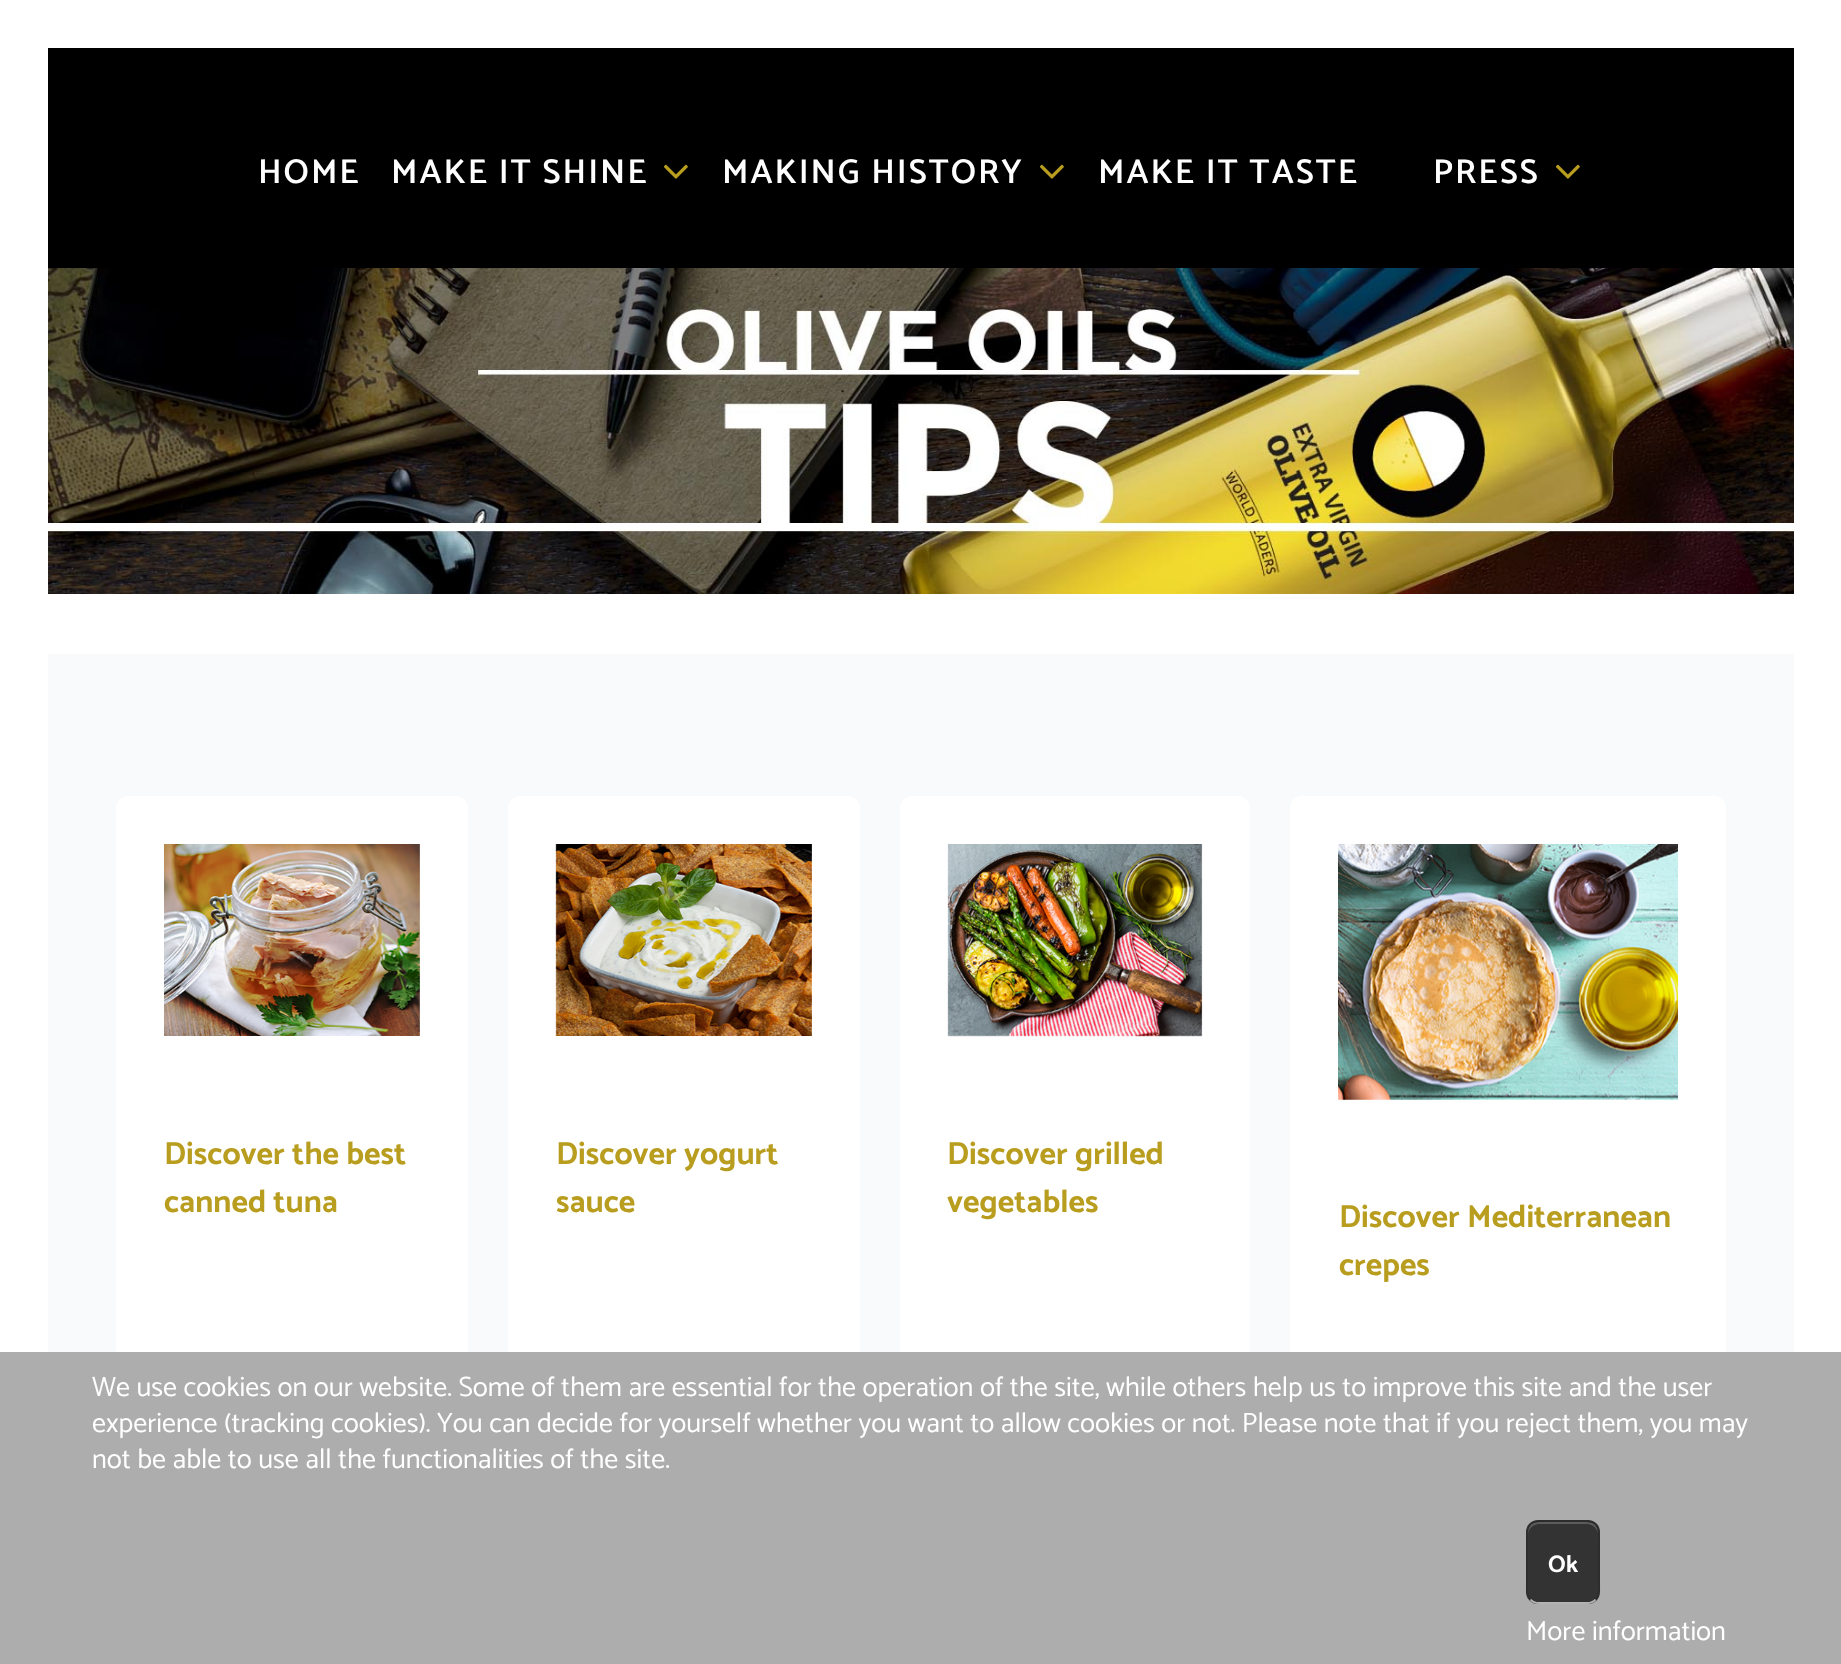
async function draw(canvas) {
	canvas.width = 1841;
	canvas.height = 1664;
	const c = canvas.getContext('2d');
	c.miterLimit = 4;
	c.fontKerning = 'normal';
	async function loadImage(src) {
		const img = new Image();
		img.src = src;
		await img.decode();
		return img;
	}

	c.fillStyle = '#fff';
	c.fillRect(0, 0, 1841, 1664);
	c.fillStyle = '#000';
	c.fillRect(48, 48, 1746, 220);
	c.letterSpacing = '2px';
	c.font = '600 34.5px Catamaran';
	c.fillStyle = '#fff';
	c.fillText('HOME', 258, 183);
	c.fillText('MAKE IT SHINE', 391, 183);
	c.drawImage(await loadImage('img1.png'), 663, 164, 25, 15);
	c.fillText('MAKING HISTORY', 722, 183);
	c.drawImage(await loadImage('img1.png'), 1039, 164, 25, 15);
	c.fillText('MAKE IT TASTE', 1098, 183);
	c.fillText('PRESS', 1433, 183);
	c.drawImage(await loadImage('img1.png'), 1555, 164, 25, 15);
	c.drawImage(await loadImage('img2.png'), 48, 268, 1746, 326);
	c.fillStyle = '#f9fafb';
	c.fillRect(48, 654, 1746, 698);
	c.fillStyle = '#fff';
	c.beginPath();
	c.roundRect(116, 796, 352, 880, 12);
	c.fill();
	c.drawImage(await loadImage('img3.png'), 164, 844, 256, 192);
	c.letterSpacing = '0px';
	c.font = 'bold 32px Catamaran';
	c.fillStyle = '#b89d1f';
	c.fillText('Discover the best', 164, 1164);
	c.fillText('canned tuna', 164, 1212);
	c.fillStyle = '#fff';
	c.beginPath();
	c.roundRect(508, 796, 352, 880, 12);
	c.fill();
	c.drawImage(await loadImage('img4.png'), 555, 844, 257, 192);
	c.fillStyle = '#b89d1f';
	c.fillText('Discover yogurt', 556, 1164);
	c.fillText('sauce', 556, 1212);
	c.fillStyle = '#fff';
	c.beginPath();
	c.roundRect(900, 796, 350, 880, 12);
	c.fill();
	c.drawImage(await loadImage('img5.png'), 947, 844, 256, 193);
	c.fillStyle = '#b89d1f';
	c.fillText('Discover grilled', 947, 1164);
	c.fillText('vegetables', 947, 1212);
	c.fillStyle = '#fff';
	c.beginPath();
	c.roundRect(1290, 796, 436, 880, 12);
	c.fill();
	c.drawImage(await loadImage('img6.png'), 1338, 844, 340, 256);
	c.fillStyle = '#b89d1f';
	c.fillText('Discover Mediterranean', 1339, 1227);
	c.fillText('crepes', 1339, 1275);
	c.fillStyle = '#adadad';
	c.fillRect(0, 1352, 1841, 312);
	c.font = '28px Catamaran';
	c.fillStyle = '#fff';
	for (const [text, x, y] of [
		['We use cookies on our website. Some of them are essential for the operation of the site, while others help us to improve this site and the user', 92, 1396],
		['experience (tracking cookies). You can decide for yourself whether you want to allow cookies or not. Please note that if you reject them, you may', 92, 1432],
		['not be able to use all the functionalities of the site.', 92, 1468],
	]) {
		c.fillText(text, x, y);
	}
	c.fillStyle = '#333';
	c.beginPath();
	c.roundRect(1526, 1520, 74, 84, 12);
	c.fill();
	c.fillStyle = '#5c5c5c';
	c.beginPath();
	c.moveTo(1539, 1524);
	c.lineTo(1587, 1524);
	c.bezierCurveTo(1593, 1524, 1598, 1529, 1598, 1535);
	c.bezierCurveTo(1598, 1522, 1591, 1522, 1580, 1522);
	c.lineTo(1546, 1522);
	c.bezierCurveTo(1535, 1522, 1528, 1522, 1528, 1535);
	c.bezierCurveTo(1528, 1529, 1533, 1524, 1539, 1524);
	c.closePath();
	c.fill();
	c.beginPath();
	c.moveTo(1595.5, 1599.5);
	c.bezierCurveTo(1593.5, 1602, 1590.5, 1603, 1587, 1603);
	c.lineTo(1539, 1603);
	c.bezierCurveTo(1535.5, 1603, 1532.5, 1602, 1530.5, 1599.5);
	c.strokeStyle = '#b3b3b3';
	c.lineWidth = 2;
	c.stroke();
	c.beginPath();
	c.moveTo(1530.5, 1599.5);
	c.bezierCurveTo(1525.5, 1595, 1527, 1587.5, 1527, 1581.5);
	c.lineTo(1527, 1542.5);
	c.bezierCurveTo(1527, 1534, 1525.5, 1523.5, 1536.5, 1521);
	c.lineTo(1589.5, 1521);
	c.bezierCurveTo(1600.5, 1523.5, 1599, 1534, 1599, 1542.5);
	c.lineTo(1599, 1581.5);
	c.bezierCurveTo(1599, 1587.5, 1600.5, 1595, 1595.5, 1599.5);
	c.strokeStyle = '#0000001a';
	c.stroke();
	c.font = 'bold 24px Catamaran';
	c.fillStyle = '#fff';
	c.fillText('Ok', 1548, 1572);
	c.font = '28px Catamaran';
	c.fillText('More information', 1526, 1640);
}

draw(document.querySelector('canvas'));
